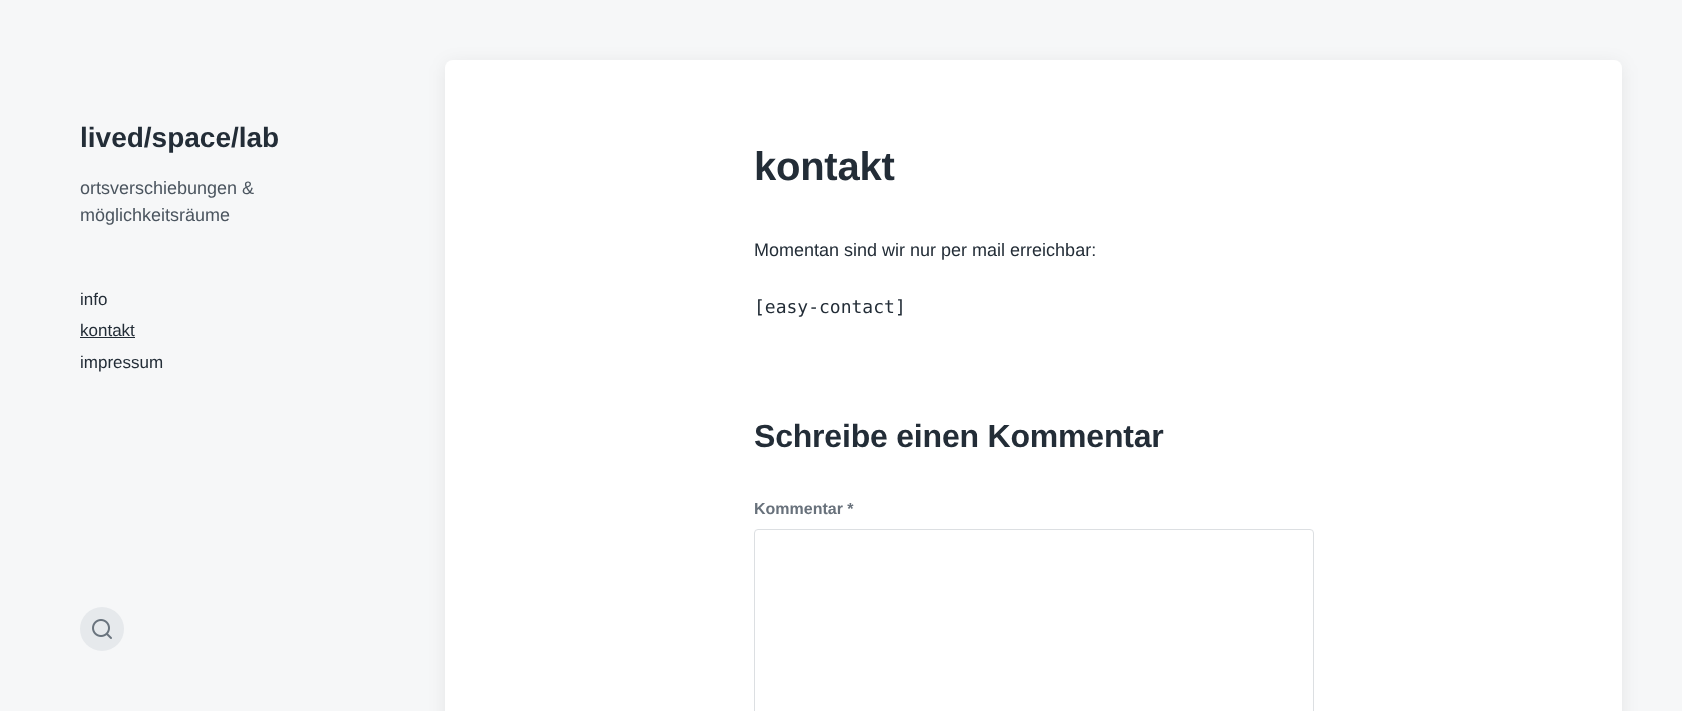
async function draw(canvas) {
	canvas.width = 1682;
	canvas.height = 711;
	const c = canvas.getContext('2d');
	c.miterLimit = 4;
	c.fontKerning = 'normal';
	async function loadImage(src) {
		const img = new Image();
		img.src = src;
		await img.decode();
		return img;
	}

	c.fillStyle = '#f6f7f8';
	c.fillRect(0, 0, 1682, 711);
	c.font = 'bold 28px Liberation Sans';
	c.fillStyle = '#232d37';
	c.fillText('lived/space/lab', 80, 147);
	c.font = '18px Liberation Sans';
	c.fillStyle = '#4b555f';
	c.fillText('ortsverschiebungen &', 80, 194);
	c.fillText('möglichkeitsräume', 80, 221);
	c.font = '17px Liberation Sans';
	c.fillStyle = '#232d37';
	c.fillText('info', 80, 305);
	c.fillText('kontakt', 80, 336);
	c.fillRect(80, 337, 55, 1);
	c.fillText('impressum', 80, 368);
	c.fillStyle = '#e6e9ec';
	c.beginPath();
	c.arc(102, 629, 22, 0, 2 * Math.PI);
	c.fill();
	c.drawImage(await loadImage('img1.png'), 92, 619, 20, 20);
	c.fillStyle = '#050a0f12';
	c.filter = 'blur(9px)';
	c.beginPath();
	c.roundRect(445, 63, 1177, 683, 8);
	c.fill();
	c.filter = 'none';
	c.fillStyle = '#fff';
	c.beginPath();
	c.roundRect(445, 60, 1177, 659, 8);
	c.fill();
	c.letterSpacing = '-0.25px';
	c.font = 'bold 40px Liberation Sans';
	c.fillStyle = '#232d37';
	c.fillText('kontakt', 754, 180);
	c.letterSpacing = '0px';
	c.font = '18px Liberation Sans';
	c.fillText('Momentan sind wir nur per mail erreichbar:', 754, 256);
	c.font = '18px DejaVu Sans Mono';
	c.fillText('[easy-contact]', 754, 313);
	c.letterSpacing = '-0.2px';
	c.font = 'bold 32px Liberation Sans';
	c.fillText('Schreibe einen Kommentar', 754, 447);
	c.letterSpacing = '0px';
	c.font = 'bold 16px Liberation Sans';
	c.fillStyle = '#68717b';
	c.fillText('Kommentar *', 754, 514);
	c.beginPath();
	c.roundRect(754.5, 529.5, 559, 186, 3.5);
	c.strokeStyle = '#dcdfe2';
	c.stroke();
}

draw(document.querySelector('canvas'));
